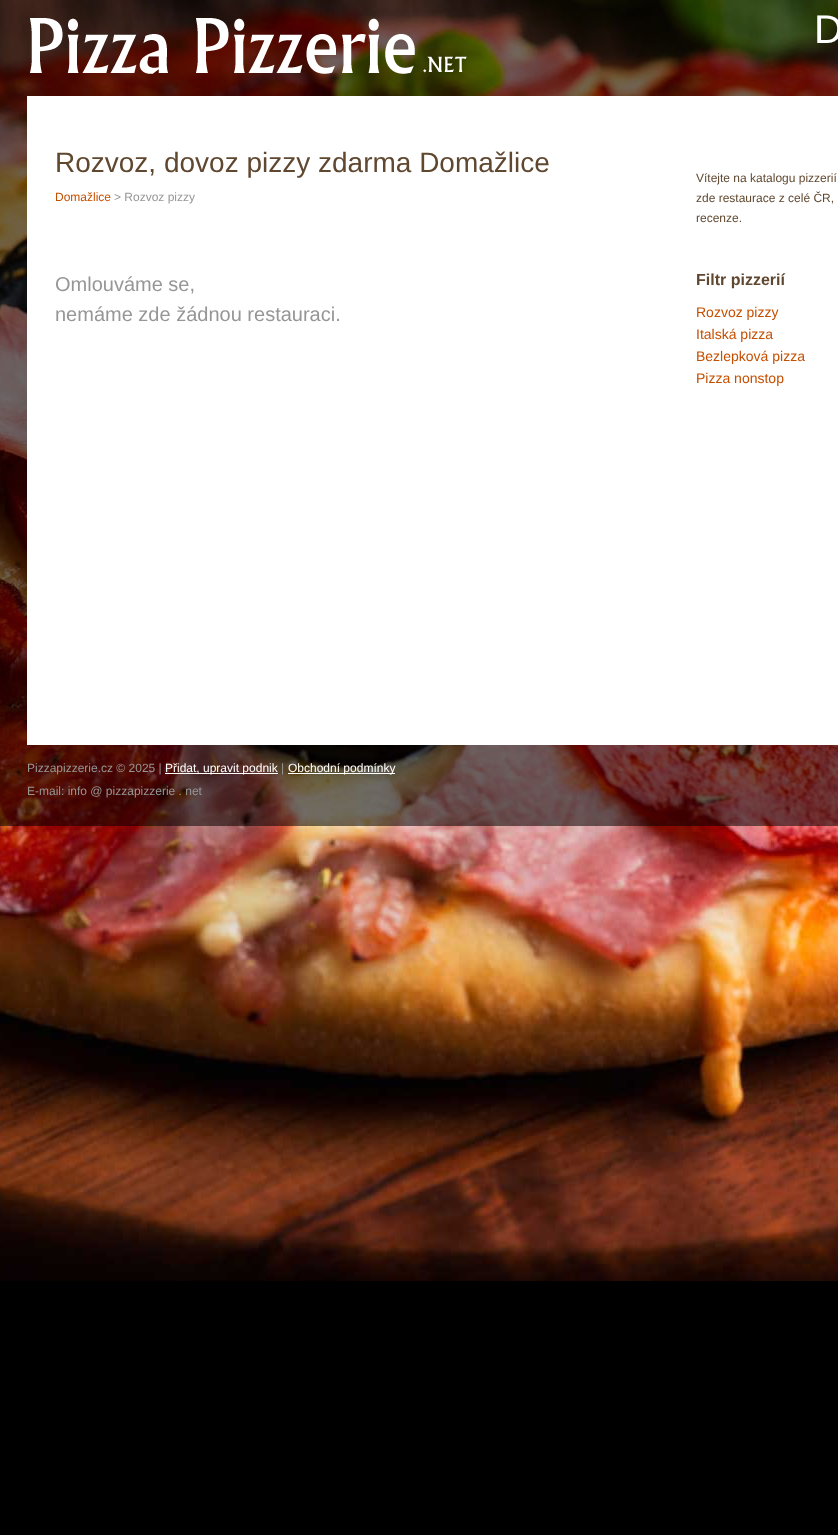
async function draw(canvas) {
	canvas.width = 838;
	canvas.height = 1535;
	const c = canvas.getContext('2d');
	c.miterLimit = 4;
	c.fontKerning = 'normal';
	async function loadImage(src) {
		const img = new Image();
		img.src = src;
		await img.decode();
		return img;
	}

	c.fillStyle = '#000';
	c.fillRect(0, 0, 838, 1535);
	c.drawImage(await loadImage('img1.png'), 0, 0, 838, 1281);
	c.fillStyle = '#0000008a';
	c.fillRect(0, 0, 838, 826);
	c.drawImage(await loadImage('img2.png'), 30, 18, 437, 56);
	c.font = '40px Liberation Sans';
	c.fillStyle = '#fff';
	c.fillText('D', 814, 43);
	c.fillRect(27, 96, 811, 649);
	c.font = '28px Liberation Sans';
	c.fillStyle = '#604830';
	c.fillText('Rozvoz, dovoz pizzy zdarma Domažlice', 55, 172);
	c.font = '12px Liberation Sans';
	c.fillStyle = '#c54f00';
	c.fillText('Domažlice', 55, 201);
	c.fillStyle = '#969696';
	c.fillText('> Rozvoz pizzy', 114, 201);
	c.font = '20px Liberation Sans';
	c.fillText('Omlouváme se,', 55, 291);
	c.fillText('nemáme zde žádnou restauraci.', 55, 321);
	c.font = '12px Liberation Sans';
	c.fillStyle = '#604830';
	for (const [text, x, y] of [
		['Vítejte na katalogu pizzerií', 696, 182],
		['zde restaurace z celé ČR,', 696, 202],
		['recenze.', 696, 222],
	]) {
		c.fillText(text, x, y);
	}
	c.font = 'bold 16px Liberation Sans';
	c.fillText('Filtr pizzerií', 696, 285);
	c.font = '14px Liberation Sans';
	c.fillStyle = '#c54f00';
	for (const [text, x, y] of [
		['Rozvoz pizzy', 696, 317],
		['Italská pizza', 696, 339],
		['Bezlepková pizza', 696, 361],
		['Pizza nonstop', 696, 383],
	]) {
		c.fillText(text, x, y);
	}
	c.font = '12px Liberation Sans';
	c.fillStyle = '#969696';
	c.fillText('Pizzapizzerie.cz © 2025 |', 27, 772);
	c.fillStyle = '#fff';
	c.fillRect(165, 773, 113, 1);
	c.fillText('Přidat, upravit podnik', 165, 772);
	c.fillStyle = '#969696';
	c.fillText('|', 281, 772);
	c.fillStyle = '#fff';
	c.fillRect(288, 773, 107, 1);
	c.fillText('Obchodní podmínky', 288, 772);
	c.fillStyle = '#969696';
	c.fillText('E-mail: info @ pizzapizzerie . net', 27, 795);
}

draw(document.querySelector('canvas'));
